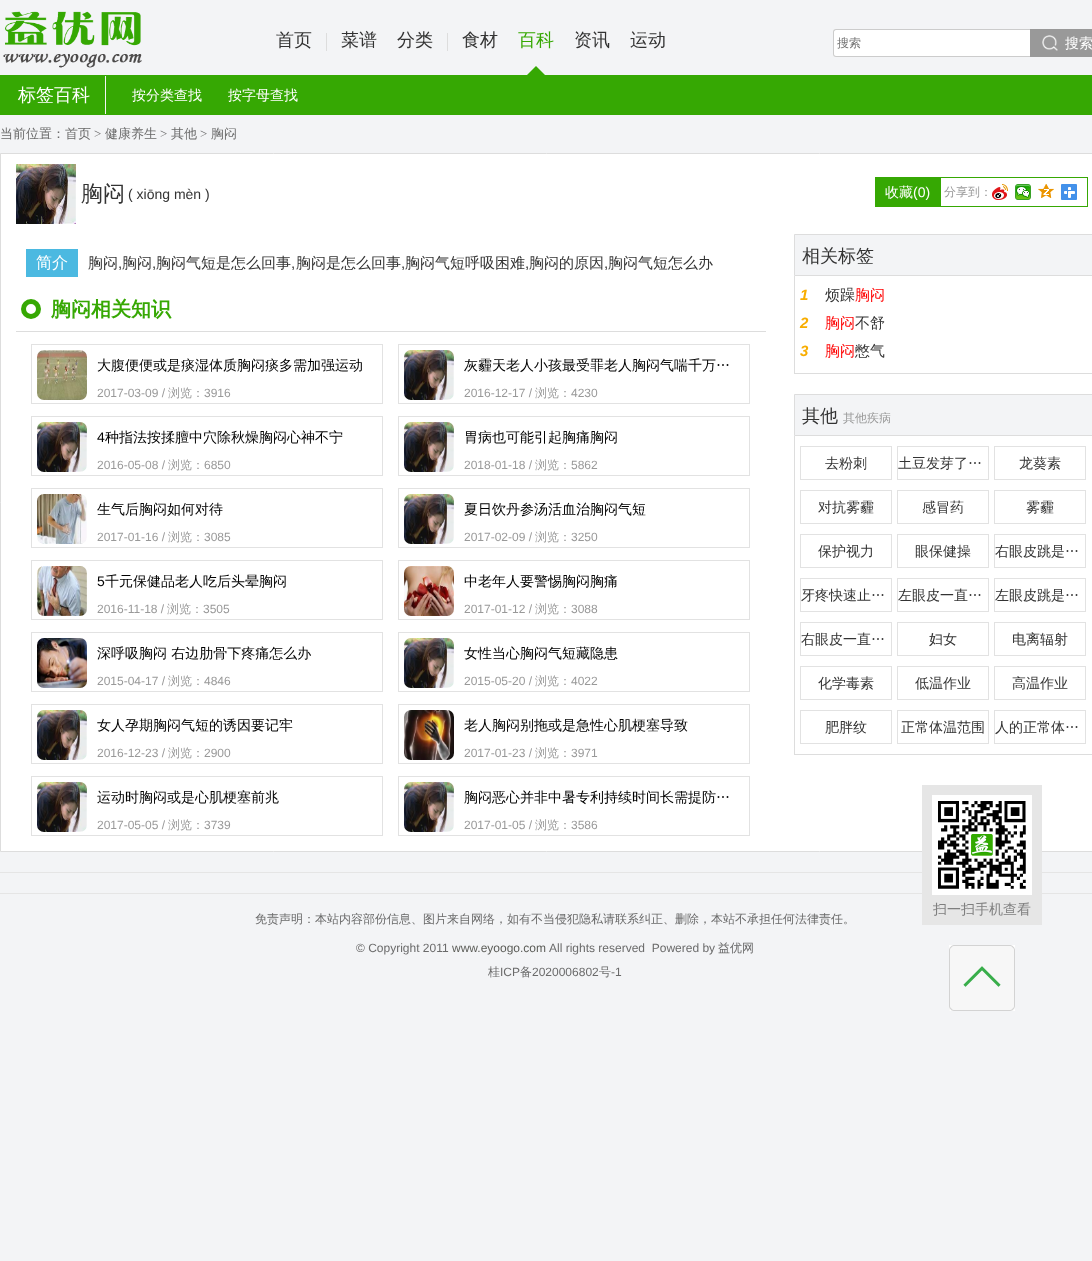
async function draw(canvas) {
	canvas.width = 1092;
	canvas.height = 1261;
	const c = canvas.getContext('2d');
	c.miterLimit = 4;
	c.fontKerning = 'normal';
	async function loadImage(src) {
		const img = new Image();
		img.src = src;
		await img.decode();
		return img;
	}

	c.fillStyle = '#f3f4f6';
	c.fillRect(0, 0, 1092, 1261);
	c.drawImage(await loadImage('img1.png'), 3, 11, 139, 57);
	c.font = '500 18px WenQuanYi Zen Hei';
	c.fillStyle = '#333';
	c.fillText('首页', 276, 46);
	c.fillStyle = '#ddd';
	c.fillRect(326, 33, 1, 18);
	c.fillStyle = '#333';
	c.fillText('菜谱', 341, 46);
	c.fillText('分类', 397, 46);
	c.fillStyle = '#ddd';
	c.fillRect(447, 33, 1, 18);
	c.fillStyle = '#333';
	c.fillText('食材', 462, 46);
	c.fillStyle = '#36a803';
	c.fillText('百科', 518, 46);
	c.beginPath();
	c.moveTo(545, 75);
	c.lineTo(527, 75);
	c.lineTo(536, 66);
	c.closePath();
	c.fill();
	c.fillStyle = '#333';
	c.fillText('资讯', 574, 46);
	c.fillText('运动', 630, 46);
	c.fillStyle = '#fff';
	c.beginPath();
	c.roundRect(833, 29, 197, 28, [3, 0, 0, 3]);
	c.fill();
	c.fillStyle = '#ccc';
	c.beginPath();
	c.moveTo(836, 29);
	c.lineTo(1030, 29);
	c.lineTo(1030, 57);
	c.lineTo(836, 57);
	c.bezierCurveTo(834, 57, 833, 56, 833, 54);
	c.lineTo(833, 32);
	c.bezierCurveTo(833, 30, 834, 29, 836, 29);
	c.closePath();
	c.moveTo(836, 30);
	c.lineTo(1030, 30);
	c.lineTo(1030, 56);
	c.lineTo(836, 56);
	c.bezierCurveTo(835, 56, 834, 55, 834, 54);
	c.lineTo(834, 32);
	c.bezierCurveTo(834, 31, 835, 30, 836, 30);
	c.closePath();
	c.fill('evenodd');
	c.font = '500 12px WenQuanYi Zen Hei';
	c.fillStyle = '#757575';
	c.fillText('搜索', 837, 47);
	c.fillStyle = '#999';
	c.fillRect(1030, 29, 62, 28);
	c.drawImage(await loadImage('img2.png'), 1042, 35, 16, 16);
	c.font = '500 14px WenQuanYi Zen Hei';
	c.fillStyle = '#fff';
	c.fillText('搜索', 1065, 48);
	c.fillStyle = '#36a803';
	c.fillRect(0, 75, 1092, 40);
	c.fillStyle = '#f3f4f6';
	c.fillRect(105, 76, 1, 38);
	c.font = '500 18px WenQuanYi Zen Hei';
	c.fillStyle = '#fff';
	c.fillText('标签百科', 18, 101);
	c.font = '500 14px WenQuanYi Zen Hei';
	c.fillText('按分类查找', 132, 100);
	c.fillText('按字母查找', 228, 100);
	c.font = '500 13px WenQuanYi Zen Hei';
	c.fillStyle = '#6a6a6a';
	c.fillText('当前位置：首页', 0, 138);
	c.font = '13px Liberation Serif';
	c.fillText('>', 94, 138);
	c.font = '500 13px WenQuanYi Zen Hei';
	c.fillText('健康养生', 105, 138);
	c.font = '13px Liberation Serif';
	c.fillText('>', 160, 138);
	c.font = '500 13px WenQuanYi Zen Hei';
	c.fillText('其他', 171, 138);
	c.font = '13px Liberation Serif';
	c.fillText('>', 200, 138);
	c.font = '500 13px WenQuanYi Zen Hei';
	c.fillText('胸闷', 211, 138);
	c.fillStyle = '#fff';
	c.beginPath();
	c.rect(0.5, 153.5, 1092, 698);
	c.fill();
	c.strokeStyle = '#ddd';
	c.stroke();
	c.drawImage(await loadImage('img3.png'), 16, 164, 60, 60);
	c.font = '500 22px WenQuanYi Zen Hei';
	c.fillStyle = '#333';
	c.fillText('胸闷', 81, 201);
	c.font = '14px Liberation Sans';
	c.fillText('( xiōng mèn )', 128, 199);
	c.fillStyle = '#36a803';
	c.fillRect(875, 177, 65, 30);
	c.font = '500 14px WenQuanYi Zen Hei';
	c.fillStyle = '#fff';
	c.fillText('收藏', 885, 197);
	c.font = '14px Liberation Sans';
	c.fillText('(0)', 913, 197);
	c.strokeStyle = '#36a803';
	c.strokeRect(940.5, 177.5, 147, 29);
	c.font = '500 12px WenQuanYi Zen Hei';
	c.fillStyle = '#999';
	c.fillText('分享到：', 944, 196);
	c.drawImage(await loadImage('img4.png'), 992, 184, 16, 16);
	c.drawImage(await loadImage('img5.png'), 1015, 184, 16, 16);
	c.drawImage(await loadImage('img6.png'), 1038, 184, 16, 14);
	c.drawImage(await loadImage('img7.png'), 1061, 184, 16, 16);
	c.fillStyle = '#4bb9e1';
	c.fillRect(26, 249, 52, 28);
	c.font = '500 16px WenQuanYi Zen Hei';
	c.fillStyle = '#fff';
	c.fillText('简介', 36, 268);
	c.font = '500 15px WenQuanYi Zen Hei';
	c.fillStyle = '#333';
	c.fillText('胸闷', 88, 268);
	c.font = '15px Liberation Sans';
	c.fillText(',', 118, 268);
	c.font = '500 15px WenQuanYi Zen Hei';
	c.fillText('胸闷', 122, 268);
	c.font = '15px Liberation Sans';
	c.fillText(',', 152, 268);
	c.font = '500 15px WenQuanYi Zen Hei';
	c.fillText('胸闷气短是怎么回事', 156, 268);
	c.font = '15px Liberation Sans';
	c.fillText(',', 291, 268);
	c.font = '500 15px WenQuanYi Zen Hei';
	c.fillText('胸闷是怎么回事', 296, 268);
	c.font = '15px Liberation Sans';
	c.fillText(',', 401, 268);
	c.font = '500 15px WenQuanYi Zen Hei';
	c.fillText('胸闷气短呼吸困难', 405, 268);
	c.font = '15px Liberation Sans';
	c.fillText(',', 525, 268);
	c.font = '500 15px WenQuanYi Zen Hei';
	c.fillText('胸闷的原因', 529, 268);
	c.font = '15px Liberation Sans';
	c.fillText(',', 604, 268);
	c.font = '500 15px WenQuanYi Zen Hei';
	c.fillText('胸闷气短怎么办', 608, 268);
	c.fillStyle = '#ddd';
	c.fillRect(16, 331, 750, 1);
	c.beginPath();
	c.arc(31, 309, 7.5, 0, 2 * Math.PI);
	c.lineWidth = 5;
	c.stroke();
	c.font = 'bold 20px WenQuanYi Zen Hei';
	c.fillStyle = '#36a803';
	c.fillText('胸闷相关知识', 51, 316);
	c.strokeStyle = '#e2e2e2';
	c.lineWidth = 1;
	c.strokeRect(31.5, 344.5, 351, 59);
	c.drawImage(await loadImage('img8.png'), 37, 350, 50, 50);
	c.font = '500 14px WenQuanYi Zen Hei';
	c.fillStyle = '#000';
	c.fillText('大腹便便或是痰湿体质胸闷痰多需加强运动', 97, 370);
	c.font = '12px Liberation Sans';
	c.fillStyle = '#999';
	c.fillText('2017-03-09 /', 97, 397);
	c.font = '500 12px WenQuanYi Zen Hei';
	c.fillText('浏览：', 168, 397);
	c.font = '12px Liberation Sans';
	c.fillText('3916', 204, 397);
	c.strokeRect(398.5, 344.5, 351, 59);
	c.drawImage(await loadImage('img9.png'), 404, 350, 50, 50);
	c.font = '500 14px WenQuanYi Zen Hei';
	c.fillStyle = '#000';
	c.fillText('灰霾天老人小孩最受罪老人胸闷气喘千万…', 464, 370);
	c.font = '12px Liberation Sans';
	c.fillStyle = '#999';
	c.fillText('2016-12-17 /', 464, 397);
	c.font = '500 12px WenQuanYi Zen Hei';
	c.fillText('浏览：', 535, 397);
	c.font = '12px Liberation Sans';
	c.fillText('4230', 571, 397);
	c.strokeRect(31.5, 416.5, 351, 59);
	c.drawImage(await loadImage('img10.png'), 37, 422, 50, 50);
	c.font = '14px Liberation Sans';
	c.fillStyle = '#000';
	c.fillText('4', 97, 442);
	c.font = '500 14px WenQuanYi Zen Hei';
	c.fillText('种指法按揉膻中穴除秋燥胸闷心神不宁', 105, 442);
	c.font = '12px Liberation Sans';
	c.fillStyle = '#999';
	c.fillText('2016-05-08 /', 97, 469);
	c.font = '500 12px WenQuanYi Zen Hei';
	c.fillText('浏览：', 168, 469);
	c.font = '12px Liberation Sans';
	c.fillText('6850', 204, 469);
	c.strokeRect(398.5, 416.5, 351, 59);
	c.drawImage(await loadImage('img9.png'), 404, 422, 50, 50);
	c.font = '500 14px WenQuanYi Zen Hei';
	c.fillStyle = '#000';
	c.fillText('胃病也可能引起胸痛胸闷', 464, 442);
	c.font = '12px Liberation Sans';
	c.fillStyle = '#999';
	c.fillText('2018-01-18 /', 464, 469);
	c.font = '500 12px WenQuanYi Zen Hei';
	c.fillText('浏览：', 535, 469);
	c.font = '12px Liberation Sans';
	c.fillText('5862', 571, 469);
	c.strokeRect(31.5, 488.5, 351, 59);
	c.drawImage(await loadImage('img11.png'), 37, 494, 50, 50);
	c.font = '500 14px WenQuanYi Zen Hei';
	c.fillStyle = '#000';
	c.fillText('生气后胸闷如何对待', 97, 514);
	c.font = '12px Liberation Sans';
	c.fillStyle = '#999';
	c.fillText('2017-01-16 /', 97, 541);
	c.font = '500 12px WenQuanYi Zen Hei';
	c.fillText('浏览：', 168, 541);
	c.font = '12px Liberation Sans';
	c.fillText('3085', 204, 541);
	c.strokeRect(398.5, 488.5, 351, 59);
	c.drawImage(await loadImage('img9.png'), 404, 494, 50, 50);
	c.font = '500 14px WenQuanYi Zen Hei';
	c.fillStyle = '#000';
	c.fillText('夏日饮丹参汤活血治胸闷气短', 464, 514);
	c.font = '12px Liberation Sans';
	c.fillStyle = '#999';
	c.fillText('2017-02-09 /', 464, 541);
	c.font = '500 12px WenQuanYi Zen Hei';
	c.fillText('浏览：', 535, 541);
	c.font = '12px Liberation Sans';
	c.fillText('3250', 571, 541);
	c.strokeRect(31.5, 560.5, 351, 59);
	c.drawImage(await loadImage('img12.png'), 37, 566, 50, 50);
	c.font = '14px Liberation Sans';
	c.fillStyle = '#000';
	c.fillText('5', 97, 586);
	c.font = '500 14px WenQuanYi Zen Hei';
	c.fillText('千元保健品老人吃后头晕胸闷', 105, 586);
	c.font = '12px Liberation Sans';
	c.fillStyle = '#999';
	c.fillText('2016-11-18 /', 97, 613);
	c.font = '500 12px WenQuanYi Zen Hei';
	c.fillText('浏览：', 167, 613);
	c.font = '12px Liberation Sans';
	c.fillText('3505', 203, 613);
	c.strokeRect(398.5, 560.5, 351, 59);
	c.drawImage(await loadImage('img13.png'), 404, 566, 50, 50);
	c.font = '500 14px WenQuanYi Zen Hei';
	c.fillStyle = '#000';
	c.fillText('中老年人要警惕胸闷胸痛', 464, 586);
	c.font = '12px Liberation Sans';
	c.fillStyle = '#999';
	c.fillText('2017-01-12 /', 464, 613);
	c.font = '500 12px WenQuanYi Zen Hei';
	c.fillText('浏览：', 535, 613);
	c.font = '12px Liberation Sans';
	c.fillText('3088', 571, 613);
	c.strokeRect(31.5, 632.5, 351, 59);
	c.drawImage(await loadImage('img14.png'), 37, 638, 50, 50);
	c.font = '500 14px WenQuanYi Zen Hei';
	c.fillStyle = '#000';
	c.fillText('深呼吸胸闷 右边肋骨下疼痛怎么办', 97, 658);
	c.font = '12px Liberation Sans';
	c.fillStyle = '#999';
	c.fillText('2015-04-17 /', 97, 685);
	c.font = '500 12px WenQuanYi Zen Hei';
	c.fillText('浏览：', 168, 685);
	c.font = '12px Liberation Sans';
	c.fillText('4846', 204, 685);
	c.strokeRect(398.5, 632.5, 351, 59);
	c.drawImage(await loadImage('img9.png'), 404, 638, 50, 50);
	c.font = '500 14px WenQuanYi Zen Hei';
	c.fillStyle = '#000';
	c.fillText('女性当心胸闷气短藏隐患', 464, 658);
	c.font = '12px Liberation Sans';
	c.fillStyle = '#999';
	c.fillText('2015-05-20 /', 464, 685);
	c.font = '500 12px WenQuanYi Zen Hei';
	c.fillText('浏览：', 535, 685);
	c.font = '12px Liberation Sans';
	c.fillText('4022', 571, 685);
	c.strokeRect(31.5, 704.5, 351, 59);
	c.drawImage(await loadImage('img10.png'), 37, 710, 50, 50);
	c.font = '500 14px WenQuanYi Zen Hei';
	c.fillStyle = '#000';
	c.fillText('女人孕期胸闷气短的诱因要记牢', 97, 730);
	c.font = '12px Liberation Sans';
	c.fillStyle = '#999';
	c.fillText('2016-12-23 /', 97, 757);
	c.font = '500 12px WenQuanYi Zen Hei';
	c.fillText('浏览：', 168, 757);
	c.font = '12px Liberation Sans';
	c.fillText('2900', 204, 757);
	c.strokeRect(398.5, 704.5, 351, 59);
	c.drawImage(await loadImage('img15.png'), 404, 710, 50, 50);
	c.font = '500 14px WenQuanYi Zen Hei';
	c.fillStyle = '#000';
	c.fillText('老人胸闷别拖或是急性心肌梗塞导致', 464, 730);
	c.font = '12px Liberation Sans';
	c.fillStyle = '#999';
	c.fillText('2017-01-23 /', 464, 757);
	c.font = '500 12px WenQuanYi Zen Hei';
	c.fillText('浏览：', 535, 757);
	c.font = '12px Liberation Sans';
	c.fillText('3971', 571, 757);
	c.strokeRect(31.5, 776.5, 351, 59);
	c.drawImage(await loadImage('img10.png'), 37, 782, 50, 50);
	c.font = '500 14px WenQuanYi Zen Hei';
	c.fillStyle = '#000';
	c.fillText('运动时胸闷或是心肌梗塞前兆', 97, 802);
	c.font = '12px Liberation Sans';
	c.fillStyle = '#999';
	c.fillText('2017-05-05 /', 97, 829);
	c.font = '500 12px WenQuanYi Zen Hei';
	c.fillText('浏览：', 168, 829);
	c.font = '12px Liberation Sans';
	c.fillText('3739', 204, 829);
	c.strokeRect(398.5, 776.5, 351, 59);
	c.drawImage(await loadImage('img9.png'), 404, 782, 50, 50);
	c.font = '500 14px WenQuanYi Zen Hei';
	c.fillStyle = '#000';
	c.fillText('胸闷恶心并非中暑专利持续时间长需提防…', 464, 802);
	c.font = '12px Liberation Sans';
	c.fillStyle = '#999';
	c.fillText('2017-01-05 /', 464, 829);
	c.font = '500 12px WenQuanYi Zen Hei';
	c.fillText('浏览：', 535, 829);
	c.font = '12px Liberation Sans';
	c.fillText('3586', 571, 829);
	c.fillStyle = '#f3f4f6';
	c.beginPath();
	c.rect(794.5, 234.5, 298, 41);
	c.fill();
	c.strokeStyle = '#ddd';
	c.stroke();
	c.font = '500 18px WenQuanYi Zen Hei';
	c.fillStyle = '#333';
	c.fillText('相关标签', 802, 262);
	c.fillStyle = '#ddd';
	c.fillRect(794, 373, 298, 1);
	c.fillRect(794, 276, 1, 98);
	c.font = 'italic bold 15px Liberation Sans';
	c.fillStyle = '#f8ad00';
	c.fillText('1', 800, 300);
	c.font = '500 15px WenQuanYi Zen Hei';
	c.fillStyle = '#333';
	c.fillText('烦躁', 825, 300);
	c.fillStyle = '#f00';
	c.fillText('胸闷', 855, 300);
	c.font = 'italic bold 15px Liberation Sans';
	c.fillStyle = '#f8ad00';
	c.fillText('2', 800, 328);
	c.font = '500 15px WenQuanYi Zen Hei';
	c.fillStyle = '#f00';
	c.fillText('胸闷', 825, 328);
	c.fillStyle = '#333';
	c.fillText('不舒', 855, 328);
	c.font = 'italic bold 15px Liberation Sans';
	c.fillStyle = '#f8ad00';
	c.fillText('3', 800, 356);
	c.font = '500 15px WenQuanYi Zen Hei';
	c.fillStyle = '#f00';
	c.fillText('胸闷', 825, 356);
	c.fillStyle = '#333';
	c.fillText('憋气', 855, 356);
	c.fillStyle = '#f3f4f6';
	c.beginPath();
	c.rect(794.5, 394.5, 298, 41);
	c.fill();
	c.stroke();
	c.font = '500 18px WenQuanYi Zen Hei';
	c.fillStyle = '#333';
	c.fillText('其他', 802, 422);
	c.font = '500 12px WenQuanYi Zen Hei';
	c.fillStyle = '#999';
	c.fillText('其他疾病', 843, 422);
	c.fillStyle = '#ddd';
	c.fillRect(794, 754, 298, 1);
	c.fillRect(794, 436, 1, 319);
	c.strokeStyle = '#e2e2e2';
	c.strokeRect(800.5, 446.5, 91, 33);
	c.font = '500 14px WenQuanYi Zen Hei';
	c.fillStyle = '#333';
	c.fillText('去粉刺', 825, 468);
	c.strokeRect(897.5, 446.5, 91, 33);
	c.fillText('土豆发芽了…', 898, 468);
	c.strokeRect(994.5, 446.5, 91, 33);
	c.fillText('龙葵素', 1019, 468);
	c.strokeRect(800.5, 490.5, 91, 33);
	c.fillText('对抗雾霾', 818, 512);
	c.strokeRect(897.5, 490.5, 91, 33);
	c.fillText('感冒药', 922, 512);
	c.strokeRect(994.5, 490.5, 91, 33);
	c.fillText('雾霾', 1026, 512);
	c.strokeRect(800.5, 534.5, 91, 33);
	c.fillText('保护视力', 818, 556);
	c.strokeRect(897.5, 534.5, 91, 33);
	c.fillText('眼保健操', 915, 556);
	c.strokeRect(994.5, 534.5, 91, 33);
	c.fillText('右眼皮跳是…', 995, 556);
	c.strokeRect(800.5, 578.5, 91, 33);
	c.fillText('牙疼快速止…', 801, 600);
	c.strokeRect(897.5, 578.5, 91, 33);
	c.fillText('左眼皮一直…', 898, 600);
	c.strokeRect(994.5, 578.5, 91, 33);
	c.fillText('左眼皮跳是…', 995, 600);
	c.strokeRect(800.5, 622.5, 91, 33);
	c.fillText('右眼皮一直…', 801, 644);
	c.strokeRect(897.5, 622.5, 91, 33);
	c.fillText('妇女', 929, 644);
	c.strokeRect(994.5, 622.5, 91, 33);
	c.fillText('电离辐射', 1012, 644);
	c.strokeRect(800.5, 666.5, 91, 33);
	c.fillText('化学毒素', 818, 688);
	c.strokeRect(897.5, 666.5, 91, 33);
	c.fillText('低温作业', 915, 688);
	c.strokeRect(994.5, 666.5, 91, 33);
	c.fillText('高温作业', 1012, 688);
	c.strokeRect(800.5, 710.5, 91, 33);
	c.fillText('肥胖纹', 825, 732);
	c.strokeRect(897.5, 710.5, 91, 33);
	c.fillText('正常体温范围', 901, 732);
	c.strokeRect(994.5, 710.5, 91, 33);
	c.fillText('人的正常体…', 995, 732);
	for (const [x, y, w, h, color] of [
		[0, 872, 1092, 1, '#e5e5e5'],
		[0, 893, 1092, 1, '#e5e5e5'],
		[922, 785, 120, 140, '#e6e6e6'],
	]) {
		c.fillStyle = color;
		c.fillRect(x, y, w, h);
	}
	c.drawImage(await loadImage('img16.png'), 932, 795, 100, 100);
	c.fillStyle = '#7f7f7f';
	c.fillText('扫一扫手机查看', 933, 914);
	c.drawImage(await loadImage('img17.png'), 949, 945, 66, 66);
	c.font = '500 12px WenQuanYi Zen Hei';
	c.fillStyle = '#6a6a6a';
	c.fillText('免责声明：本站内容部份信息、图片来自网络，如有不当侵犯隐私请联系纠正、删除，本站不承担任何法律责任。', 255, 923);
	c.font = '12px Liberation Sans';
	c.fillText('© Copyright 2011', 356, 952);
	c.fillStyle = '#5c5d58';
	c.fillText('www.eyoogo.com', 452, 952);
	c.fillStyle = '#6a6a6a';
	c.fillText('All rights reserved  Powered by', 549, 952);
	c.font = '500 12px WenQuanYi Zen Hei';
	c.fillText('益优网', 718, 952);
	c.fillText('桂', 488, 976);
	c.font = '12px Liberation Sans';
	c.fillText('ICP', 500, 976);
	c.font = '500 12px WenQuanYi Zen Hei';
	c.fillText('备', 520, 976);
	c.font = '12px Liberation Sans';
	c.fillText('2020006802', 532, 976);
	c.font = '500 12px WenQuanYi Zen Hei';
	c.fillText('号', 599, 976);
	c.font = '12px Liberation Sans';
	c.fillText('-1', 611, 976);
}

draw(document.querySelector('canvas'));
